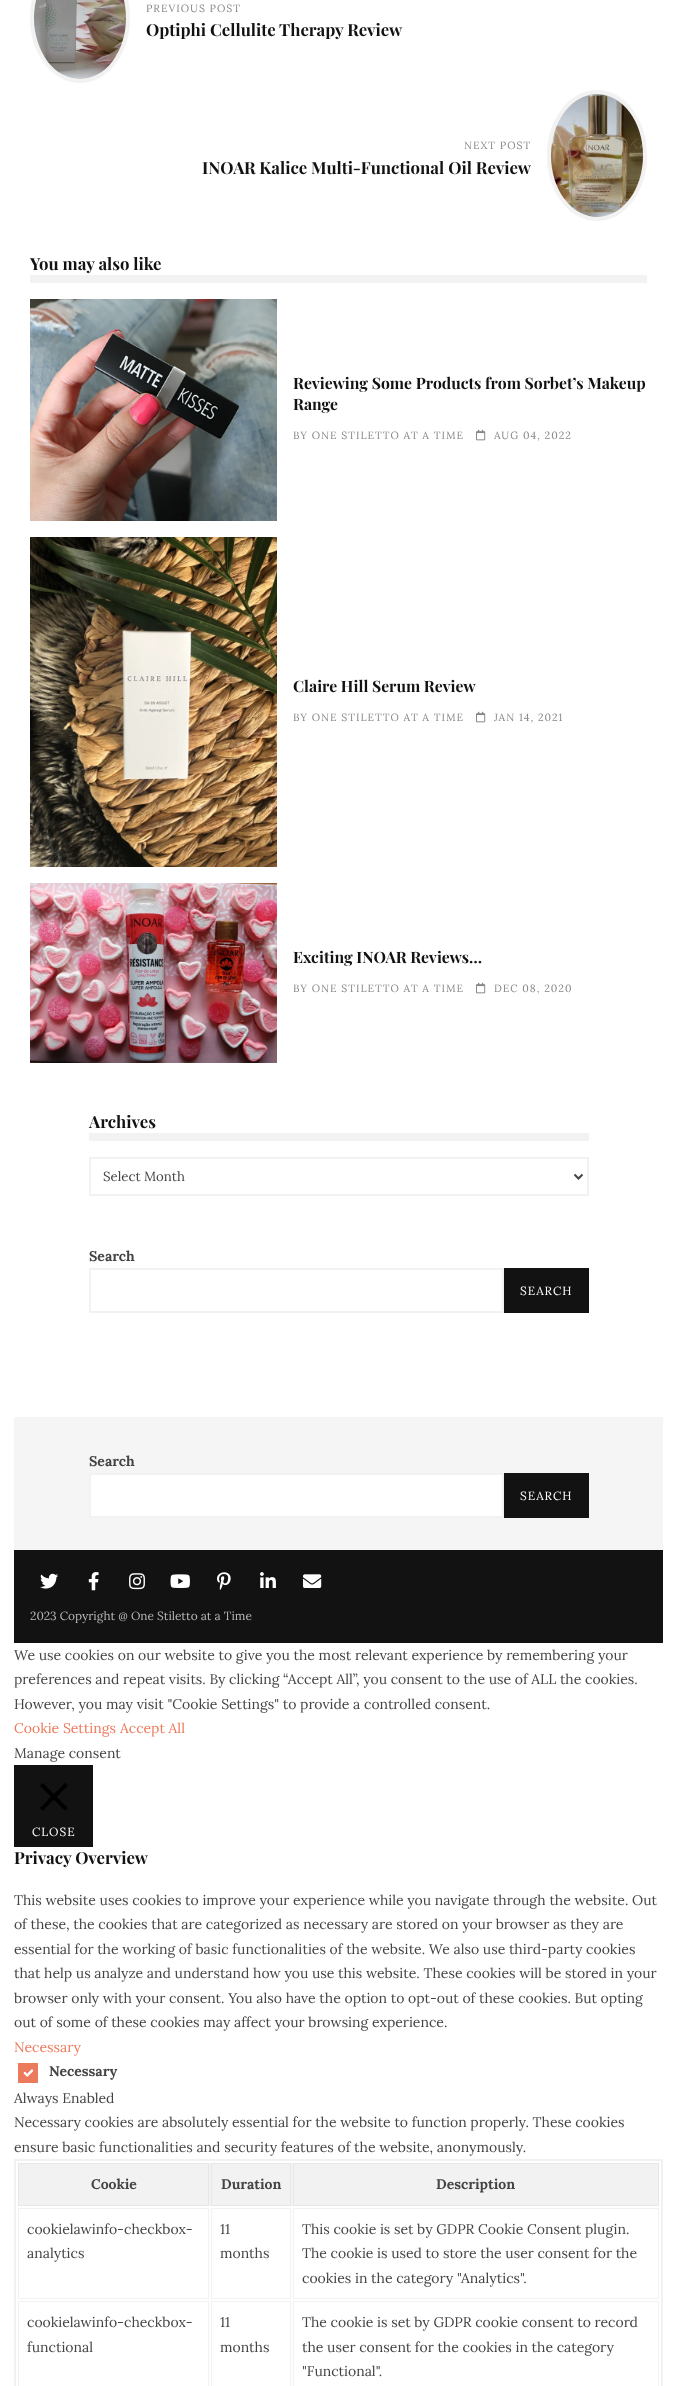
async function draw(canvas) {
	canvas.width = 677;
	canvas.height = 2386;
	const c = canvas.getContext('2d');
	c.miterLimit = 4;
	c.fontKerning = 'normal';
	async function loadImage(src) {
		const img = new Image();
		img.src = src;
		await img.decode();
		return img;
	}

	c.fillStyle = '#fff';
	c.fillRect(0, 0, 677, 2386);
	c.beginPath();
	c.moveTo(80, -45);
	c.bezierCurveTo(106.5, -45, 128, -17, 128, 18);
	c.bezierCurveTo(128, 53, 106.5, 81, 80, 81);
	c.bezierCurveTo(53.5, 81, 32, 53, 32, 18);
	c.bezierCurveTo(32, -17, 53.5, -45, 80, -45);
	c.closePath();
	c.strokeStyle = '#f2f2f2';
	c.lineWidth = 4;
	c.stroke();
	c.drawImage(await loadImage('img1.png'), 34, 0, 92, 79);
	c.letterSpacing = '1px';
	c.font = '10.5px Lora';
	c.fillStyle = '#888';
	c.fillText('PREVIOUS POST', 146, 12);
	c.letterSpacing = '0px';
	c.font = 'bold 16.75px Playfair Display';
	c.fillStyle = '#121212';
	c.fillText('Optiphi Cellulite Therapy Review', 146, 36);
	c.letterSpacing = '1px';
	c.font = '10.5px Lora';
	c.fillStyle = '#888';
	c.fillText('NEXT POST', 464, 149);
	c.letterSpacing = '0px';
	c.font = 'bold 16.75px Playfair Display';
	c.fillStyle = '#121212';
	c.fillText('INOAR Kalice Multi-Functional Oil Review', 202, 174);
	c.beginPath();
	c.moveTo(597, 92);
	c.bezierCurveTo(623.5, 92, 645, 120.5, 645, 155.5);
	c.bezierCurveTo(645, 190.5, 623.5, 219, 597, 219);
	c.bezierCurveTo(570.5, 219, 549, 190.5, 549, 155.5);
	c.bezierCurveTo(549, 120.5, 570.5, 92, 597, 92);
	c.closePath();
	c.stroke();
	c.drawImage(await loadImage('img2.png'), 551, 94, 92, 123);
	c.fillStyle = '#f2f2f2';
	c.fillRect(30, 275, 617, 8);
	c.fillStyle = '#121212';
	c.fillText('You may also like', 30, 270);
	c.drawImage(await loadImage('img3.png'), 30, 299, 247, 222);
	c.font = 'bold 15.75px Playfair Display';
	c.fillText('Reviewing Some Products from Sorbet’s Makeup', 293, 389);
	c.fillText('Range', 293, 410);
	c.letterSpacing = '1px';
	c.font = '10.5px Lora';
	c.fillStyle = '#888';
	c.fillText('BY ONE STILETTO AT A TIME', 293, 439);
	c.drawImage(await loadImage('img4.png'), 476, 429, 10, 12);
	c.fillText('AUG 04, 2022', 494, 439);
	c.drawImage(await loadImage('img5.png'), 30, 537, 247, 330);
	c.letterSpacing = '0px';
	c.font = 'bold 15.75px Playfair Display';
	c.fillStyle = '#121212';
	c.fillText('Claire Hill Serum Review', 293, 692);
	c.letterSpacing = '1px';
	c.font = '10.5px Lora';
	c.fillStyle = '#888';
	c.fillText('BY ONE STILETTO AT A TIME', 293, 721);
	c.drawImage(await loadImage('img4.png'), 476, 711, 10, 12);
	c.fillText('JAN 14, 2021', 494, 721);
	c.drawImage(await loadImage('img6.png'), 30, 883, 247, 180);
	c.letterSpacing = '0px';
	c.font = 'bold 15.75px Playfair Display';
	c.fillStyle = '#121212';
	c.fillText('Exciting INOAR Reviews…', 293, 963);
	c.letterSpacing = '1px';
	c.font = '10.5px Lora';
	c.fillStyle = '#888';
	c.fillText('BY ONE STILETTO AT A TIME', 293, 992);
	c.drawImage(await loadImage('img4.png'), 476, 982, 10, 12);
	c.fillText('DEC 08, 2020', 494, 992);
	c.fillStyle = '#f2f2f2';
	c.fillRect(89, 1133, 500, 8);
	c.letterSpacing = '0px';
	c.font = 'bold 16.75px Playfair Display';
	c.fillStyle = '#121212';
	c.fillText('Archives', 89, 1128);
	c.lineWidth = 2;
	c.strokeRect(90, 1158, 498, 37);
	c.beginPath();
	c.moveTo(574.5, 1174.5);
	c.lineTo(578.5, 1178.5);
	c.lineTo(582.5, 1174.5);
	c.strokeStyle = '#444';
	c.stroke();
	c.font = '13.25px Lora';
	c.fillStyle = '#444';
	c.fillText('Select Month', 103, 1181);
	c.font = 'bold 14px Lora';
	c.fillText('Search', 89, 1261);
	c.strokeStyle = '#f2f2f2';
	c.strokeRect(90, 1269, 413, 43);
	c.fillStyle = '#121212';
	c.fillRect(504, 1268, 85, 45);
	c.letterSpacing = '1px';
	c.font = '11.9px Lora';
	c.fillStyle = '#fff';
	c.fillText('SEARCH', 520, 1295);
	c.fillStyle = '#f5f5f5';
	c.fillRect(14, 1417, 649, 133);
	c.letterSpacing = '0px';
	c.font = 'bold 14px Lora';
	c.fillStyle = '#444';
	c.fillText('Search', 89, 1466);
	c.fillStyle = '#fff';
	c.beginPath();
	c.rect(90, 1474, 413, 43);
	c.fill();
	c.stroke();
	c.fillStyle = '#121212';
	c.fillRect(504, 1473, 85, 45);
	c.letterSpacing = '1px';
	c.font = '11.9px Lora';
	c.fillStyle = '#fff';
	c.fillText('SEARCH', 520, 1500);
	c.fillStyle = '#121212';
	c.fillRect(14, 1550, 649, 93);
	c.drawImage(await loadImage('img7.png'), 40, 1573, 18, 16);
	c.drawImage(await loadImage('img8.png'), 88, 1572, 11, 19);
	c.drawImage(await loadImage('img9.png'), 129, 1573, 16, 17);
	c.drawImage(await loadImage('img10.png'), 170, 1574, 20, 14);
	c.drawImage(await loadImage('img11.png'), 217, 1572, 14, 18);
	c.drawImage(await loadImage('img12.png'), 260, 1572, 16, 16);
	c.drawImage(await loadImage('img13.png'), 303, 1574, 19, 14);
	c.letterSpacing = '0px';
	c.fillStyle = '#b8b8b8';
	c.fillText('2023 Copyright @ One Stiletto at a Time', 30, 1620);
	c.font = '14px Lora';
	c.fillStyle = '#444';
	for (const [text, x, y] of [
		['We use cookies on our website to give you the most relevant experience by remembering your', 14, 1660],
		['preferences and repeat visits. By clicking “Accept All”, you consent to the use of ALL the cookies.', 14, 1684],
		['However, you may visit "Cookie Settings" to provide a controlled consent.', 14, 1709],
	]) {
		c.fillText(text, x, y);
	}
	c.fillStyle = '#ec7a5c';
	c.fillText('Cookie Settings', 14, 1733);
	c.fillText('Accept All', 120, 1733);
	c.fillStyle = '#444';
	c.fillText('Manage consent', 14, 1758);
	c.fillStyle = '#121212';
	c.fillRect(14, 1765, 79, 82);
	c.drawImage(await loadImage('img14.png'), 40, 1783, 28, 28);
	c.letterSpacing = '1px';
	c.font = '11.9px Lora';
	c.fillStyle = '#fff';
	c.fillText('CLOSE', 32, 1836);
	c.letterSpacing = '0px';
	c.font = 'bold 16.75px Playfair Display';
	c.fillStyle = '#121212';
	c.fillText('Privacy Overview', 14, 1864);
	c.font = '14px Lora';
	c.fillStyle = '#444';
	for (const [text, x, y] of [
		['This website uses cookies to improve your experience while you navigate through the website. Out', 14, 1905],
		['of these, the cookies that are categorized as necessary are stored on your browser as they are', 14, 1929],
		['essential for the working of basic functionalities of the website. We also use third-party cookies', 14, 1954],
		['that help us analyze and understand how you use this website. These cookies will be stored in your', 14, 1978],
		['browser only with your consent. You also have the option to opt-out of these cookies. But opting', 14, 2003],
		['out of some of these cookies may affect your browsing experience.', 14, 2027],
	]) {
		c.fillText(text, x, y);
	}
	c.fillStyle = '#ec7a5c';
	c.fillText('Necessary', 14, 2052);
	c.fillRect(18, 2063, 20, 20);
	c.drawImage(await loadImage('img15.png'), 23, 2069, 11, 8);
	c.font = 'bold 14px Lora';
	c.fillStyle = '#444';
	c.fillText('Necessary', 49, 2076);
	c.font = '14px Lora';
	for (const [text, x, y] of [
		['Always Enabled', 14, 2103],
		['Necessary cookies are absolutely essential for the website to function properly. These cookies', 14, 2127],
		['ensure basic functionalities and security features of the website, anonymously.', 14, 2152],
	]) {
		c.fillText(text, x, y);
	}
	c.strokeRect(15, 2160, 647, 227);
	c.fillStyle = '#f2f2f2';
	c.fillRect(19, 2163, 639, 43);
	c.strokeStyle = '#e7e7e7';
	c.lineWidth = 1;
	c.strokeRect(18.5, 2163.5, 190, 42);
	c.font = 'bold 14px Lora';
	c.fillStyle = '#444';
	c.fillText('Cookie', 91, 2189);
	c.strokeRect(211.5, 2163.5, 79, 42);
	c.fillText('Duration', 221, 2189);
	c.strokeRect(293.5, 2163.5, 365, 42);
	c.fillText('Description', 436, 2189);
	c.strokeStyle = '#f2f2f2';
	c.strokeRect(18.5, 2208.5, 190, 90);
	c.font = '14px Lora';
	c.fillText('cookielawinfo-checkbox-', 27, 2234);
	c.fillText('analytics', 27, 2258);
	c.strokeRect(211.5, 2208.5, 79, 90);
	c.fillText('11', 220, 2234);
	c.fillText('months', 220, 2258);
	c.strokeRect(293.5, 2208.5, 365, 90);
	for (const [text, x, y] of [
		['This cookie is set by GDPR Cookie Consent plugin.', 302, 2234],
		['The cookie is used to store the user consent for the', 302, 2258],
		['cookies in the category "Analytics".', 302, 2283],
	]) {
		c.fillText(text, x, y);
	}
	c.strokeRect(18.5, 2301.5, 190, 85);
	c.fillText('cookielawinfo-checkbox-', 27, 2327);
	c.fillText('functional', 27, 2352);
	c.strokeRect(211.5, 2301.5, 79, 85);
	c.fillText('11', 220, 2327);
	c.fillText('months', 220, 2352);
	c.strokeRect(293.5, 2301.5, 365, 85);
	for (const [text, x, y] of [
		['The cookie is set by GDPR cookie consent to record', 302, 2327],
		['the user consent for the cookies in the category', 302, 2352],
		['"Functional".', 302, 2376],
	]) {
		c.fillText(text, x, y);
	}
}

draw(document.querySelector('canvas'));
